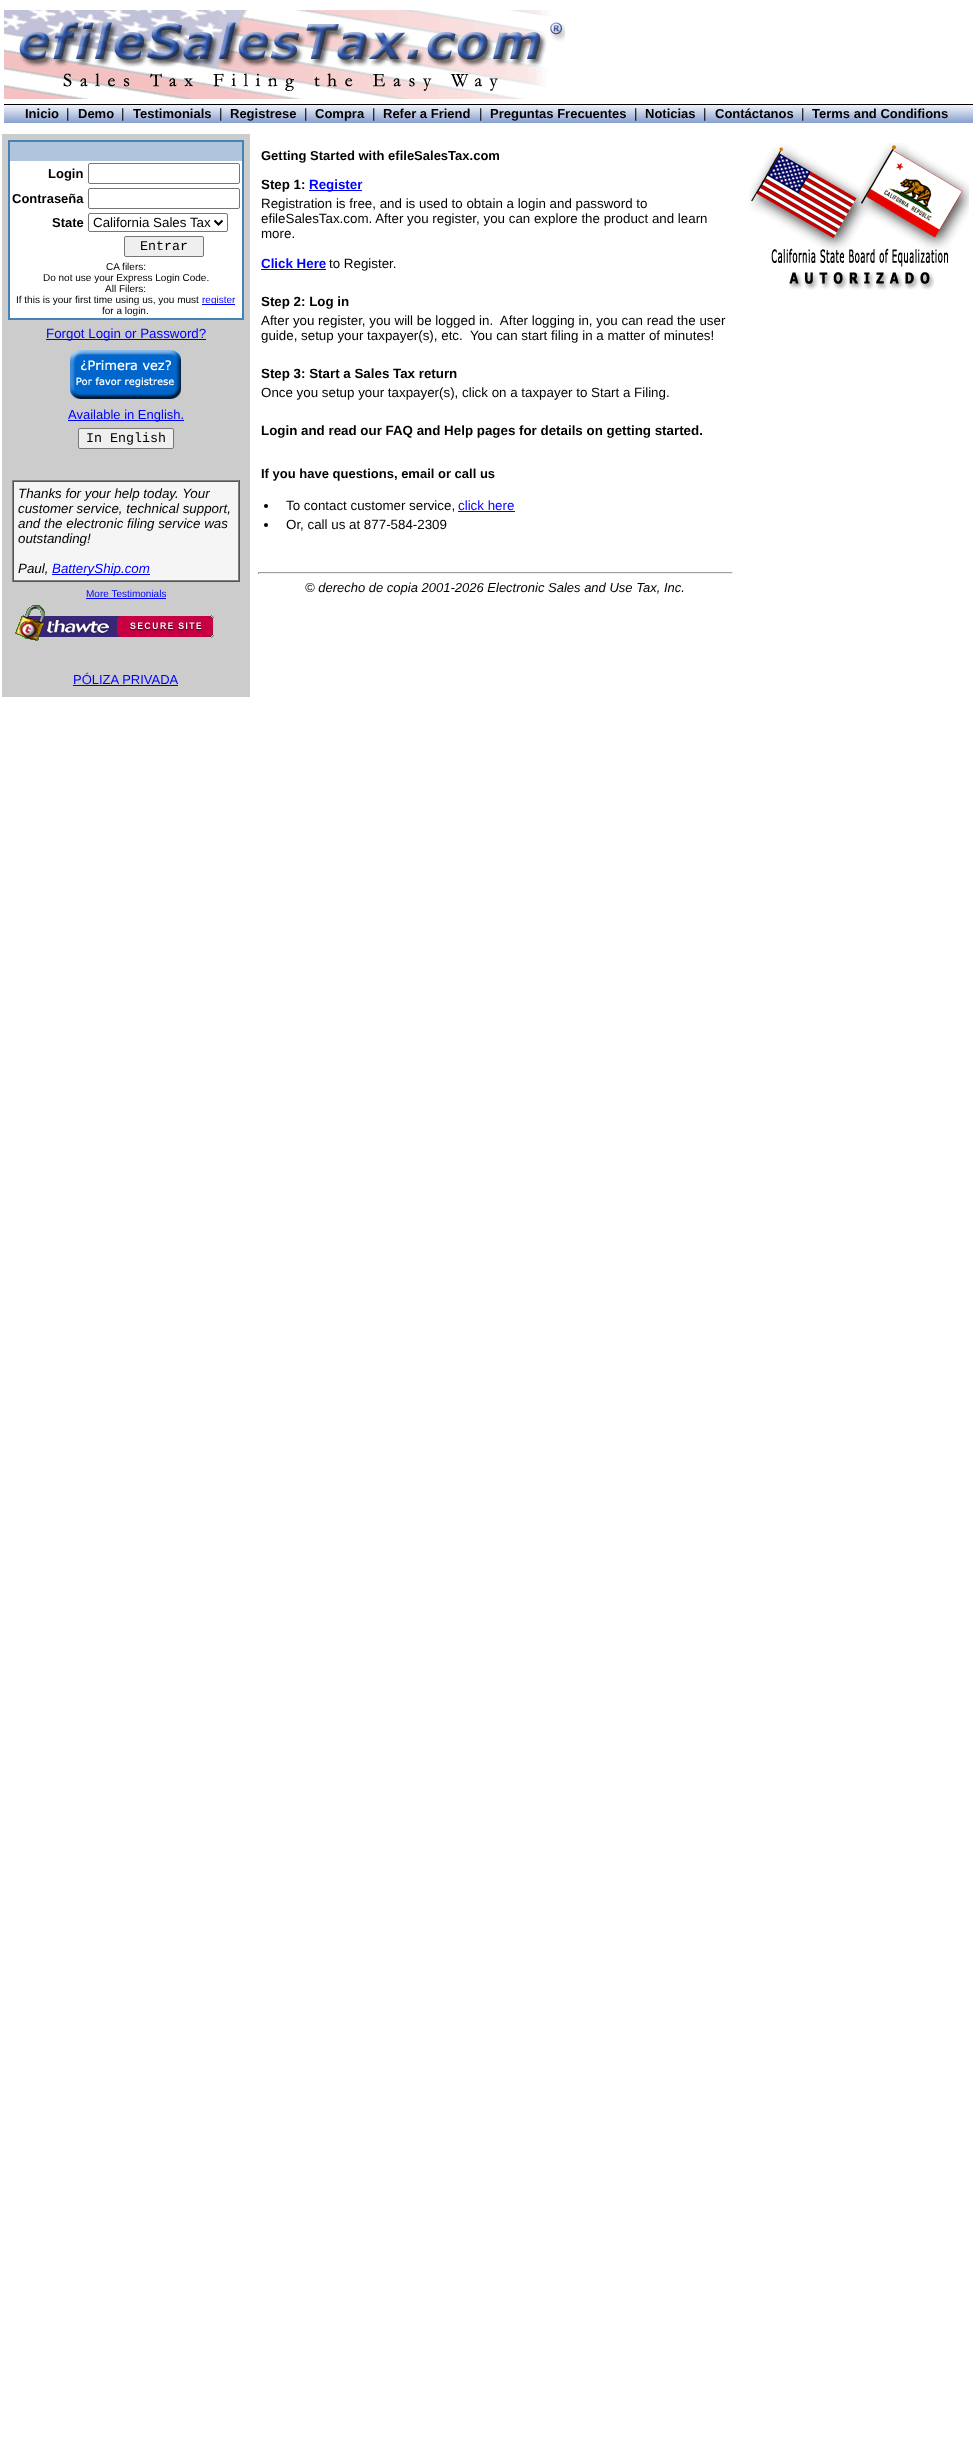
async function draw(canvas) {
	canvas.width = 977;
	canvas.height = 2449;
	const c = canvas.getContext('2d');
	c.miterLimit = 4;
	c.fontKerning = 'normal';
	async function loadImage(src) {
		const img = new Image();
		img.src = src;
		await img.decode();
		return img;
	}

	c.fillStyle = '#fff';
	c.fillRect(0, 0, 977, 2449);
	c.drawImage(await loadImage('img1.png'), 4, 10, 561, 89);
	c.drawImage(await loadImage('img2.png'), 4, 104, 969, 19);
	c.font = 'bold 13px Liberation Sans';
	c.fillStyle = '#000';
	c.fillText('Inicio', 25, 118);
	c.font = '13.35px Liberation Sans';
	c.fillText('|', 66, 118);
	c.font = 'bold 13px Liberation Sans';
	c.fillText('Demo', 78, 118);
	c.font = '13.35px Liberation Sans';
	c.fillText('|', 121, 118);
	c.font = 'bold 13px Liberation Sans';
	c.fillText('Testimonials', 133, 118);
	c.font = '13.35px Liberation Sans';
	c.fillText('|', 219, 118);
	c.font = 'bold 13px Liberation Sans';
	c.fillText('Registrese', 230, 118);
	c.font = '13.35px Liberation Sans';
	c.fillText('|', 304, 118);
	c.font = 'bold 13px Liberation Sans';
	c.fillText('Compra', 315, 118);
	c.font = '13.35px Liberation Sans';
	c.fillText('|', 372, 118);
	c.font = 'bold 13px Liberation Sans';
	c.fillText('Refer a Friend', 383, 118);
	c.font = '13.35px Liberation Sans';
	c.fillText('|', 479, 118);
	c.font = 'bold 13px Liberation Sans';
	c.fillText('Preguntas Frecuentes', 490, 118);
	c.font = '13.35px Liberation Sans';
	c.fillText('|', 634, 118);
	c.font = 'bold 13px Liberation Sans';
	c.fillText('Noticias', 645, 118);
	c.font = '13.35px Liberation Sans';
	c.fillText('|', 703, 118);
	c.font = 'bold 13px Liberation Sans';
	c.fillText('Contáctanos', 715, 118);
	c.font = '13.35px Liberation Sans';
	c.fillText('|', 801, 118);
	c.font = 'bold 13px Liberation Sans';
	c.fillText('Terms and Condifions', 812, 118);
	c.fillStyle = '#ccc';
	c.fillRect(2, 134, 248, 563);
	c.fillStyle = '#fff';
	c.fillRect(10, 161, 232, 157);
	c.strokeStyle = '#4682b4';
	c.strokeRect(8.5, 140.5, 235, 179);
	c.strokeRect(9.5, 141.5, 233, 177);
	c.fillStyle = '#b0c4de';
	c.fillRect(10, 142, 232, 19);
	c.fillStyle = '#000';
	c.fillText('Login', 48, 178);
	c.beginPath();
	c.roundRect(88.5, 163.5, 151, 20, 1.5);
	c.strokeStyle = '#767676';
	c.stroke();
	c.fillText('Contraseña', 12, 203);
	c.beginPath();
	c.roundRect(88.5, 188.5, 151, 20, 1.5);
	c.stroke();
	c.fillText('State', 52, 227);
	c.beginPath();
	c.roundRect(88.5, 213.5, 139, 18, 1.5);
	c.stroke();
	c.beginPath();
	c.moveTo(214.5, 220.5);
	c.lineTo(218.5, 224.5);
	c.lineTo(222.5, 220.5);
	c.strokeStyle = '#000';
	c.lineWidth = 2;
	c.stroke();
	c.font = '13.35px Liberation Sans';
	c.fillText('California Sales Tax', 93, 227);
	c.fillStyle = '#efefef';
	c.beginPath();
	c.roundRect(124.5, 236.5, 79, 20, 1.5);
	c.fill();
	c.strokeStyle = '#767676';
	c.lineWidth = 1;
	c.stroke();
	c.font = '13.35px Liberation Mono';
	c.fillStyle = '#000';
	c.fillText('Entrar', 140, 250);
	c.font = '10px Liberation Sans';
	for (const [text, x, y] of [
		['CA filers:', 106, 270],
		['Do not use your Express Login Code.', 43, 281],
		['All Filers:', 105, 292],
		['If this is your first time using us, you must', 16, 303],
	]) {
		c.fillText(text, x, y);
	}
	c.fillStyle = '#00f';
	c.fillRect(202, 304, 33, 1);
	c.fillText('register', 202, 303);
	c.fillStyle = '#000';
	c.fillText('for a login.', 102, 314);
	c.fillStyle = '#00f';
	c.fillRect(46, 339, 160, 1);
	c.font = '13.35px Liberation Sans';
	c.fillText('Forgot Login or Password?', 46, 338);
	c.drawImage(await loadImage('img3.png'), 70, 350, 111, 49);
	c.fillRect(68, 420, 116, 1);
	c.font = '13px Liberation Sans';
	c.fillText('Available in English.', 68, 419);
	c.fillStyle = '#efefef';
	c.beginPath();
	c.roundRect(78.5, 428.5, 95, 20, 1.5);
	c.fill();
	c.stroke();
	c.font = '13.35px Liberation Mono';
	c.fillStyle = '#000';
	c.fillText('In English', 86, 442);
	for (const [x, y, w, h, color] of [
		[14, 482, 224, 98, '#f5f5f5'],
		[12, 480, 228, 1, '#808080'],
		[239, 480, 1, 102, '#555'],
		[12, 581, 228, 1, '#555'],
		[12, 480, 1, 102, '#808080'],
		[13, 481, 226, 1, '#555'],
		[238, 481, 1, 100, '#808080'],
		[13, 580, 226, 1, '#808080'],
		[13, 481, 1, 100, '#555'],
	]) {
		c.fillStyle = color;
		c.fillRect(x, y, w, h);
	}
	c.font = 'italic 13.35px Liberation Sans';
	c.fillStyle = '#000';
	for (const [text, x, y] of [
		['Thanks for your help today. Your', 18, 498],
		['customer service, technical support,', 18, 513],
		['and the electronic filing service was', 18, 528],
		['outstanding!', 18, 543],
		['Paul,', 18, 573],
	]) {
		c.fillText(text, x, y);
	}
	c.fillStyle = '#00f';
	c.fillRect(52, 574, 98, 1);
	c.fillText('BatteryShip.com', 52, 573);
	c.font = '10px Liberation Sans';
	c.fillText('More Testimonials', 86, 597);
	c.fillRect(86, 598, 80, 1);
	c.drawImage(await loadImage('img4.png'), 15, 605, 199, 36);
	c.font = '13px Liberation Sans';
	c.fillText('PÓLIZA PRIVADA', 73, 684);
	c.fillRect(73, 685, 105, 1);
	c.font = 'bold 13px Liberation Sans';
	c.fillStyle = '#000';
	c.fillText('Getting Started with efileSalesTax.com', 261, 160);
	c.font = 'bold 13.35px Liberation Sans';
	c.fillText('Step 1:', 261, 189);
	c.fillStyle = '#00f';
	c.fillRect(309, 190, 53, 1);
	c.fillText('Register', 309, 189);
	c.font = '13.35px Liberation Sans';
	c.fillStyle = '#000';
	for (const [text, x, y] of [
		['Registration is free, and is used to obtain a login and password to', 261, 208],
		['efileSalesTax.com. After you register, you can explore the product and learn', 261, 223],
		['more.', 261, 238],
	]) {
		c.fillText(text, x, y);
	}
	c.font = 'bold 13.35px Liberation Sans';
	c.fillStyle = '#00f';
	c.fillText('Click Here', 261, 268);
	c.fillRect(261, 269, 65, 1);
	c.font = '13.35px Liberation Sans';
	c.fillStyle = '#000';
	c.fillText('to Register.', 329, 268);
	c.font = 'bold 13.35px Liberation Sans';
	c.fillText('Step 2: Log in', 261, 306);
	c.font = '13.35px Liberation Sans';
	c.fillText('After you register, you will be logged in.  After logging in, you can read the user', 261, 325);
	c.fillText('guide, setup your taxpayer(s), etc.  You can start filing in a matter of minutes!', 261, 340);
	c.font = 'bold 13.35px Liberation Sans';
	c.fillText('Step 3: Start a Sales Tax return', 261, 378);
	c.font = '13.35px Liberation Sans';
	c.fillText('Once you setup your taxpayer(s), click on a taxpayer to Start a Filing.', 261, 397);
	c.font = 'bold 13.35px Liberation Sans';
	c.fillText('Login and read our FAQ and Help pages for details on getting started.', 261, 435);
	c.font = 'bold 13px Liberation Sans';
	c.fillText('If you have questions, email or call us', 261, 478);
	c.beginPath();
	c.arc(266, 506, 2, 0, 2 * Math.PI);
	c.fill();
	c.font = '13.35px Liberation Sans';
	c.fillText('To contact customer service,', 286, 510);
	c.fillStyle = '#00f';
	c.fillText('click here', 458, 510);
	c.fillRect(458, 511, 57, 1);
	c.fillStyle = '#000';
	c.beginPath();
	c.arc(266, 525, 2, 0, 2 * Math.PI);
	c.fill();
	c.fillText('Or, call us at 877-584-2309', 286, 529);
	for (const [x, y, w, h, color] of [
		[258, 572, 475, 1, '#9f9f9f'],
		[732, 572, 1, 2, '#eee'],
		[258, 573, 475, 1, '#eee'],
		[258, 572, 1, 2, '#9f9f9f'],
	]) {
		c.fillStyle = color;
		c.fillRect(x, y, w, h);
	}
	c.font = 'italic 13px Liberation Sans';
	c.fillStyle = '#000';
	c.fillText('© derecho de copia 2001-2026 Electronic Sales and Use Tax, Inc.', 305, 592);
	c.drawImage(await loadImage('img5.png'), 749, 143, 220, 147);
}

draw(document.querySelector('canvas'));
